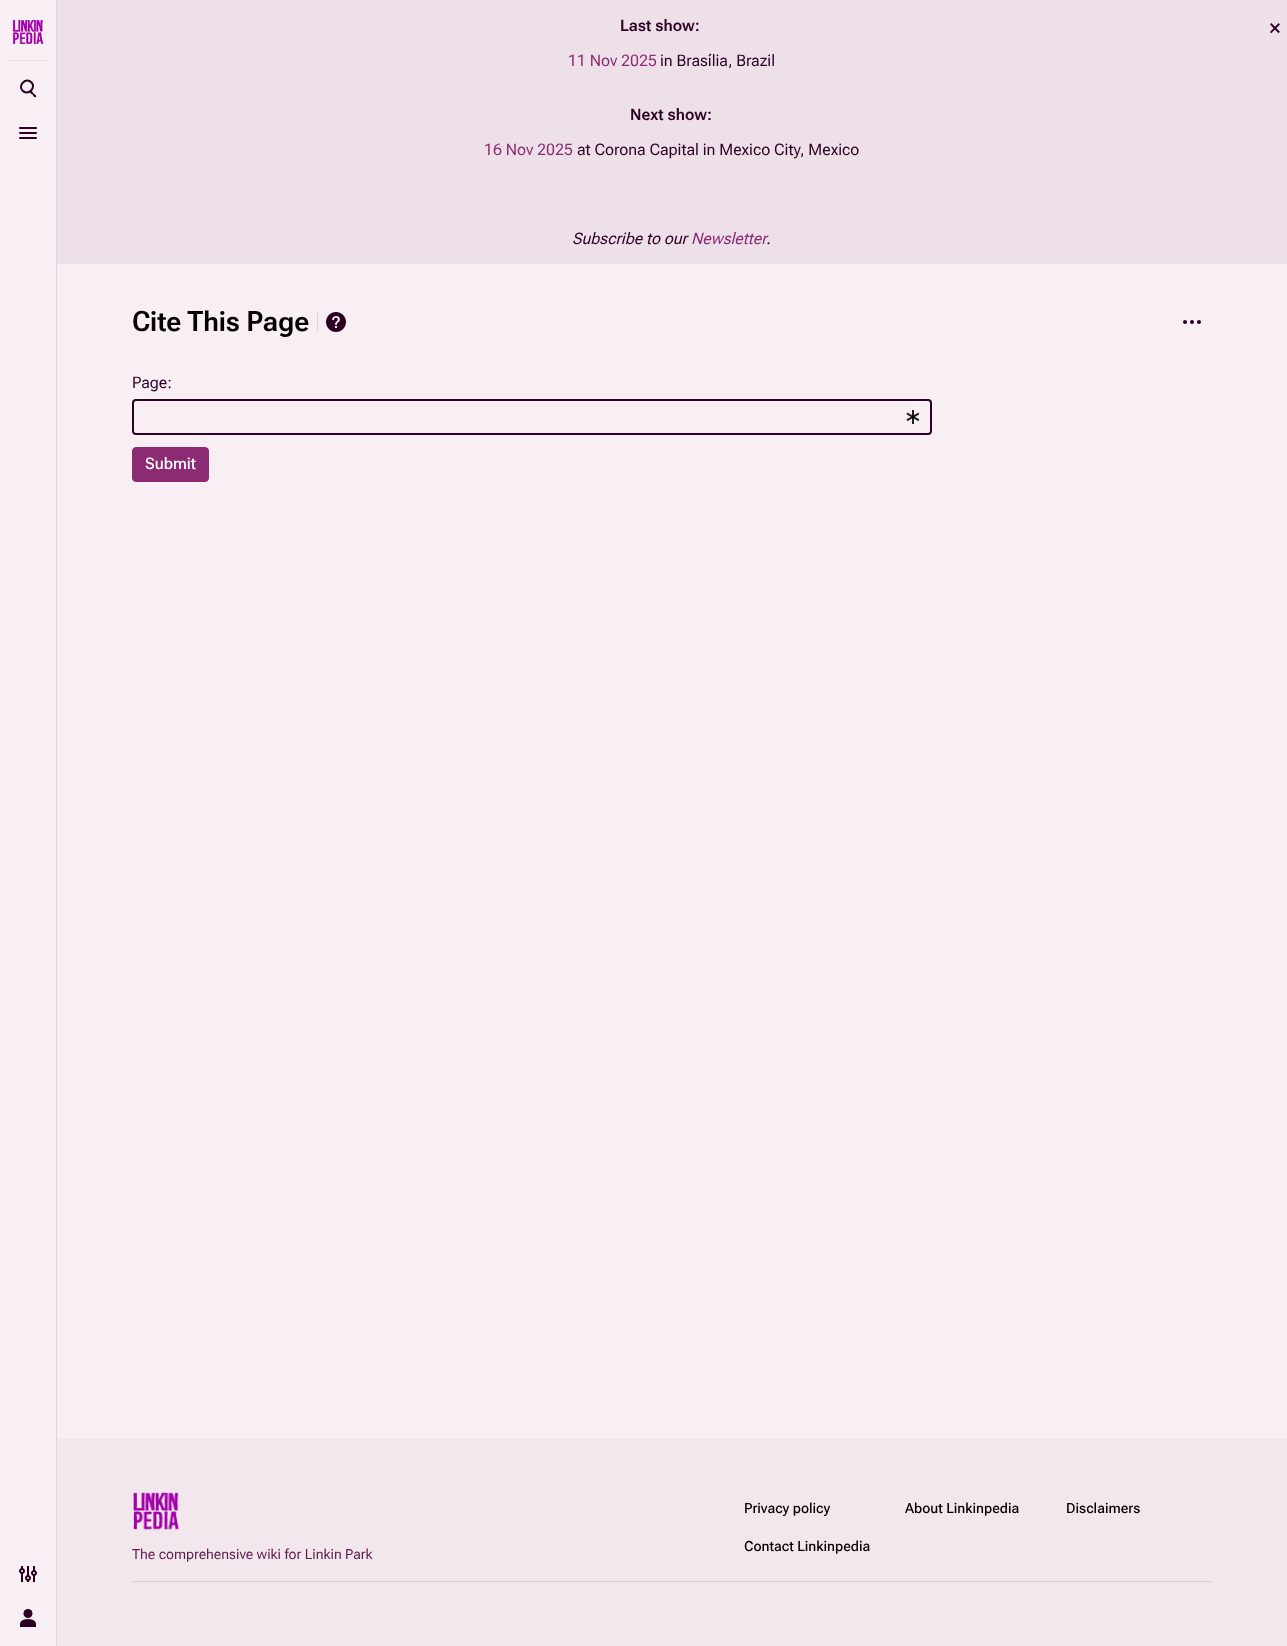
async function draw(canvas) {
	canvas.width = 1287;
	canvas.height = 1646;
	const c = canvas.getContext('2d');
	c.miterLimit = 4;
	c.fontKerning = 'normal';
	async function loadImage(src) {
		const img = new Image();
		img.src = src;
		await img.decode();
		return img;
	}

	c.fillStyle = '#f7eff4';
	c.fillRect(0, 0, 1287, 1646);
	c.fillStyle = '#ded7dc';
	c.fillRect(56, 0, 1, 1646);
	c.fillStyle = '#ebe3e8';
	c.fillRect(8, 60, 40, 1);
	c.drawImage(await loadImage('img1.png'), 12, 20, 32, 24);
	c.fillStyle = '#2d0023';
	c.beginPath();
	c.moveTo(30, 91);
	c.bezierCurveTo(31.5, 90, 33, 92.5, 33.5, 93.5);
	c.bezierCurveTo(34.5, 94, 37, 95.5, 36, 97);
	c.bezierCurveTo(34.5, 98, 33, 95.5, 32.5, 94.5);
	c.bezierCurveTo(31.5, 94, 29, 92.5, 30, 91);
	c.closePath();
	c.fill();
	c.beginPath();
	c.moveTo(23, 82.5);
	c.bezierCurveTo(28.5, 76.5, 37, 85, 31, 90.5);
	c.bezierCurveTo(25.5, 96.5, 17, 88, 23, 82.5);
	c.closePath();
	c.strokeStyle = '#2d0023';
	c.lineWidth = 2;
	c.stroke();
	c.beginPath();
	c.roundRect(19, 127, 18, 2, 1);
	c.fill();
	c.beginPath();
	c.roundRect(19, 132, 18, 2, 1);
	c.fill();
	c.beginPath();
	c.roundRect(19, 137, 18, 2, 1);
	c.fill();
	c.drawImage(await loadImage('img2.png'), 19, 1566, 18, 16);
	c.drawImage(await loadImage('img3.png'), 20, 1609, 16, 18);
	c.fillStyle = '#eee0e9';
	c.fillRect(57, 0, 1230, 264);
	c.font = '600 16px Roboto Flex';
	c.fillStyle = '#2d0023';
	c.fillText('Last show:', 620, 31);
	c.font = '16px "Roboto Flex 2"';
	c.fillStyle = '#8c2a73';
	c.fillText('11 Nov 2025', 568, 66);
	c.fillStyle = '#2d0023';
	c.fillText('in Brasília, Brazil', 660, 66);
	c.font = '600 16px Roboto Flex';
	c.fillText('Next show:', 630, 120);
	c.font = '16px "Roboto Flex 2"';
	c.fillStyle = '#8c2a73';
	c.fillText('16 Nov 2025', 484, 155);
	c.fillStyle = '#2d0023';
	c.fillText('at Corona Capital in Mexico City, Mexico', 577, 155);
	c.font = 'italic 16px Roboto Flex';
	c.fillText('Subscribe to our', 572, 244);
	c.fillStyle = '#8c2a73';
	c.fillText('Newsletter', 691, 244);
	c.fillStyle = '#2d0023';
	c.fillText('.', 766, 244);
	c.font = '24px Roboto Flex';
	c.fillText('×', 1269, 36);
	c.font = '600 28px "Roboto Flex 2"';
	c.fillStyle = '#040002';
	c.fillText('Cite This Page', 132, 331);
	c.fillStyle = '#ded7dc';
	c.fillRect(317, 312, 1, 20);
	c.drawImage(await loadImage('img4.png'), 326, 312, 20, 20);
	c.drawImage(await loadImage('img5.png'), 1183, 320, 18, 4);
	c.font = '16px "Roboto Flex 2"';
	c.fillStyle = '#2d0023';
	c.fillText('Page:', 132, 388);
	c.beginPath();
	c.roundRect(133, 400, 798, 34, 3);
	c.stroke();
	c.drawImage(await loadImage('img6.png'), 906, 410, 14, 14);
	c.fillStyle = '#8c2a73';
	c.beginPath();
	c.roundRect(132.5, 447.5, 76, 34, 3.5);
	c.fill();
	c.strokeStyle = '#8c2a73';
	c.lineWidth = 1;
	c.stroke();
	c.font = '500 16px Roboto Flex';
	c.fillStyle = '#fff';
	c.fillText('Submit', 145, 469);
	c.fillStyle = '#f3e7ee';
	c.fillRect(57, 1439, 1230, 207);
	c.drawImage(await loadImage('img7.png'), 133, 1492, 46, 38);
	c.font = '14px Roboto Flex';
	c.fillStyle = '#5d1e4c';
	c.fillText('The comprehensive wiki for Linkin Park', 132, 1559);
	c.font = '500 14px "Roboto Flex 2"';
	c.fillStyle = '#040002';
	for (const [text, x, y] of [
		['Privacy policy', 744, 1513],
		['About Linkinpedia', 905, 1513],
		['Disclaimers', 1066, 1513],
		['Contact Linkinpedia', 744, 1551],
	]) {
		c.fillText(text, x, y);
	}
	c.fillStyle = '#dbd0d6';
	c.fillRect(132, 1581, 1080, 1);
}

draw(document.querySelector('canvas'));
